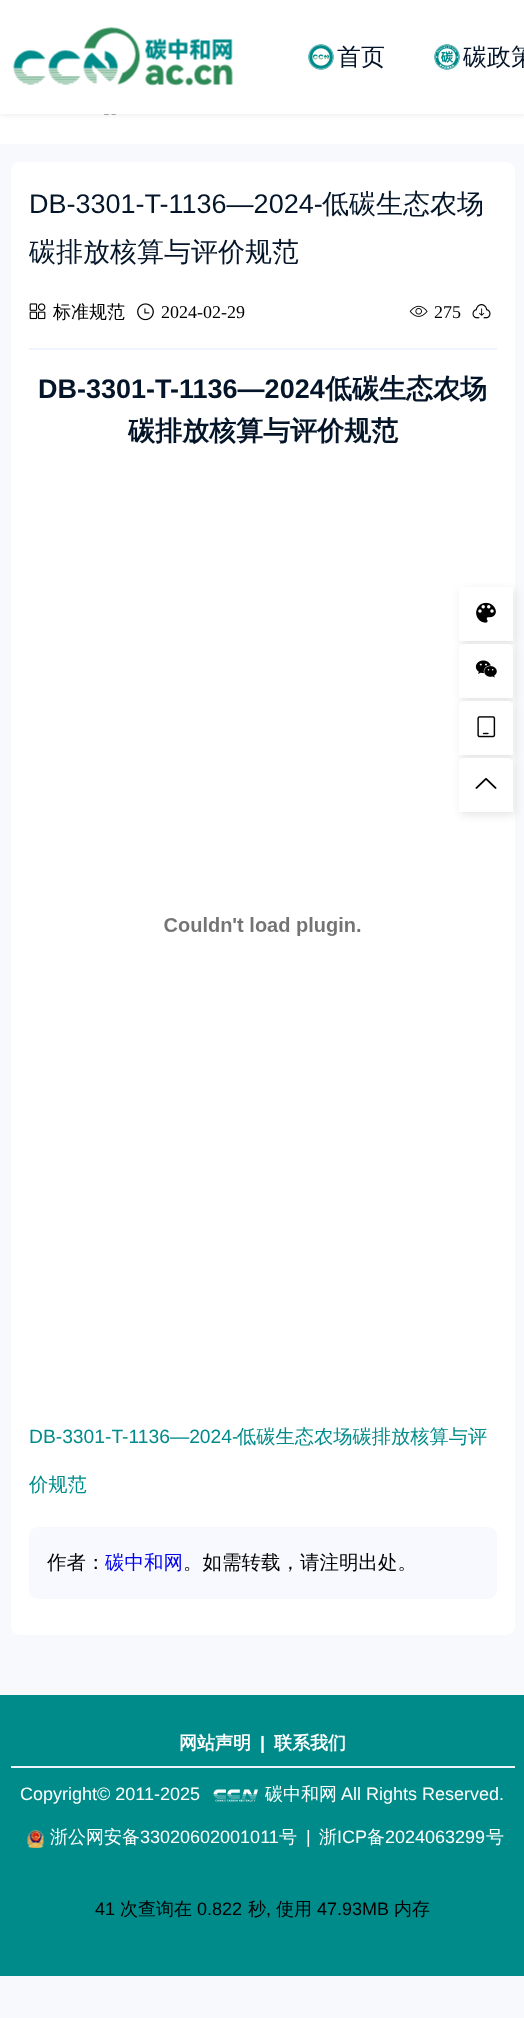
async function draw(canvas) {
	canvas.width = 524;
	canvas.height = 2018;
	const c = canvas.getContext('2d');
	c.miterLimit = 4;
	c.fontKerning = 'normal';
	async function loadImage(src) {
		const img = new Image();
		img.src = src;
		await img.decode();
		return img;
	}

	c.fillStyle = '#f8f9fc';
	c.fillRect(0, 0, 524, 2018);
	c.fillStyle = '#fff';
	c.fillRect(0, 114, 524, 30);
	c.drawImage(await loadImage('img4.png'), 104, 114, 12, 1);
	c.fillStyle = '#0000001a';
	c.filter = 'blur(3px)';
	c.beginPath();
	c.rect(0, 0, 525, 114);
	c.fill();
	c.filter = 'none';
	c.fillStyle = '#fff';
	c.fillRect(0, 0, 524, 114);
	c.drawImage(await loadImage('img1.png'), 13, 27, 220, 59);
	c.drawImage(await loadImage('img2.png'), 308, 44, 26, 26);
	c.font = '500 24px WenQuanYi Zen Hei';
	c.fillStyle = '#051529';
	c.fillText('首页', 337, 65);
	c.drawImage(await loadImage('img3.png'), 434, 44, 26, 26);
	c.fillText('碳政策', 463, 65);
	c.fillStyle = '#fff';
	c.beginPath();
	c.roundRect(11, 162, 504, 1473, 9);
	c.fill();
	c.fillStyle = '#eff5ff';
	c.fillRect(29, 348, 468, 2);
	c.font = '27px Liberation Sans';
	c.fillStyle = '#051529';
	c.fillText('DB-3301-T-1136—2024-', 29, 213);
	c.font = '500 27px WenQuanYi Zen Hei';
	c.fillText('低碳生态农场', 322, 213);
	c.fillText('碳排放核算与评价规范', 29, 261);
	c.drawImage(await loadImage('img5.png'), 29, 303, 17, 17);
	c.font = '500 18px WenQuanYi Zen Hei';
	c.fillStyle = '#000';
	c.fillText('标准规范', 53, 318);
	c.drawImage(await loadImage('img6.png'), 137, 303, 17, 18);
	c.font = '18px Liberation Serif';
	c.fillText('2024-02-29', 161, 318);
	c.drawImage(await loadImage('img7.png'), 409, 305, 19, 12);
	c.fillText('275', 434, 318);
	c.drawImage(await loadImage('img8.png'), 472, 304, 19, 15);
	c.font = 'bold 27px Liberation Sans';
	c.fillStyle = '#051529';
	c.fillText('DB-3301-T-1136—2024', 38, 398);
	c.font = 'bold 27px WenQuanYi Zen Hei';
	c.fillText('低碳生态农场', 325, 398);
	c.fillText('碳排放核算与评价规范', 128, 440);
	c.drawImage(await loadImage('img9.png'), 164, 917, 197, 19);
	c.font = '19.25px Liberation Sans';
	c.fillStyle = '#008b8b';
	c.fillText('DB-3301-T-1136—2024-', 29, 1443);
	c.font = '500 19.25px WenQuanYi Zen Hei';
	c.fillText('低碳生态农场碳排放核算与评', 237, 1443);
	c.fillText('价规范', 29, 1491);
	c.fillStyle = '#f7f9ff';
	c.beginPath();
	c.roundRect(29, 1527, 468, 72, 9);
	c.fill();
	c.font = '500 19.5px WenQuanYi Zen Hei';
	c.fillStyle = '#000';
	c.fillText('作者：', 47, 1569);
	c.fillStyle = '#00e';
	c.fillText('碳中和网', 105, 1569);
	c.fillStyle = '#000';
	c.fillText('。如需转载，请注明出处。', 183, 1569);
	c.fillStyle = '#008b8b';
	c.fillRect(0, 1695, 524, 281);
	c.save();
	c.beginPath();
	c.moveTo(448, 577);
	c.lineTo(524, 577);
	c.lineTo(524, 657);
	c.lineTo(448, 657);
	c.closePath();
	c.moveTo(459, 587);
	c.lineTo(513, 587);
	c.lineTo(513, 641);
	c.lineTo(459, 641);
	c.closePath();
	c.clip('evenodd');
	c.fillStyle = '#0000001a';
	c.filter = 'blur(4px)';
	c.beginPath();
	c.rect(461, 590, 54, 54);
	c.fill();
	c.filter = 'none';
	c.restore();
	c.fillStyle = '#fff';
	c.beginPath();
	c.roundRect(459, 587, 54, 54, 6);
	c.fill();
	c.drawImage(await loadImage('img10.png'), 476, 602, 20, 21);
	c.save();
	c.beginPath();
	c.moveTo(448, 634);
	c.lineTo(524, 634);
	c.lineTo(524, 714);
	c.lineTo(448, 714);
	c.closePath();
	c.moveTo(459, 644);
	c.lineTo(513, 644);
	c.lineTo(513, 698);
	c.lineTo(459, 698);
	c.closePath();
	c.clip('evenodd');
	c.fillStyle = '#0000001a';
	c.filter = 'blur(4px)';
	c.beginPath();
	c.rect(461, 647, 54, 54);
	c.fill();
	c.filter = 'none';
	c.restore();
	c.beginPath();
	c.roundRect(459, 644, 54, 54, 6);
	c.fill();
	c.drawImage(await loadImage('img11.png'), 475, 660, 22, 18);
	c.save();
	c.beginPath();
	c.moveTo(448, 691);
	c.lineTo(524, 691);
	c.lineTo(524, 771);
	c.lineTo(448, 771);
	c.closePath();
	c.moveTo(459, 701);
	c.lineTo(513, 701);
	c.lineTo(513, 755);
	c.lineTo(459, 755);
	c.closePath();
	c.clip('evenodd');
	c.fillStyle = '#0000001a';
	c.filter = 'blur(4px)';
	c.beginPath();
	c.rect(461, 704, 54, 54);
	c.fill();
	c.filter = 'none';
	c.restore();
	c.beginPath();
	c.roundRect(459, 701, 54, 54, 6);
	c.fill();
	c.drawImage(await loadImage('img12.png'), 477, 716, 19, 22);
	c.save();
	c.beginPath();
	c.moveTo(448, 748);
	c.lineTo(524, 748);
	c.lineTo(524, 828);
	c.lineTo(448, 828);
	c.closePath();
	c.moveTo(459, 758);
	c.lineTo(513, 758);
	c.lineTo(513, 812);
	c.lineTo(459, 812);
	c.closePath();
	c.clip('evenodd');
	c.fillStyle = '#0000001a';
	c.filter = 'blur(4px)';
	c.beginPath();
	c.rect(461, 761, 54, 54);
	c.fill();
	c.filter = 'none';
	c.restore();
	c.beginPath();
	c.roundRect(459, 758, 54, 54, 6);
	c.fill();
	c.drawImage(await loadImage('img13.png'), 475, 778, 22, 11);
	c.font = 'bold 18px WenQuanYi Zen Hei';
	c.fillText('网站声明', 179, 1749);
	c.font = 'bold 18px Liberation Sans';
	c.fillText('|', 260, 1749);
	c.font = 'bold 18px WenQuanYi Zen Hei';
	c.fillText('联系我们', 274, 1749);
	c.fillStyle = '#eff5ff';
	c.fillRect(11, 1766, 504, 2);
	c.font = '18px Liberation Sans';
	c.fillStyle = '#fff';
	c.fillText('Copyright© 2011-2025', 20, 1800);
	c.drawImage(await loadImage('img14.png'), 213, 1789, 45, 13);
	c.font = '500 18px WenQuanYi Zen Hei';
	c.fillText('碳中和网', 265, 1800);
	c.font = '18px Liberation Sans';
	c.fillText('All Rights Reserved.', 341, 1800);
	c.drawImage(await loadImage('img15.png'), 27, 1830, 17, 18);
	c.font = '500 18px WenQuanYi Zen Hei';
	c.fillText('浙公网安备', 50, 1843);
	c.font = '18px Liberation Sans';
	c.fillText('33020602001011', 140, 1843);
	c.font = '500 18px WenQuanYi Zen Hei';
	c.fillText('号', 279, 1843);
	c.font = '18px Liberation Sans';
	c.fillText('|', 306, 1843);
	c.font = '500 18px WenQuanYi Zen Hei';
	c.fillText('浙', 319, 1843);
	c.font = '18px Liberation Sans';
	c.fillText('ICP', 337, 1843);
	c.font = '500 18px WenQuanYi Zen Hei';
	c.fillText('备', 367, 1843);
	c.font = '18px Liberation Sans';
	c.fillText('2024063299', 385, 1843);
	c.font = '500 18px WenQuanYi Zen Hei';
	c.fillText('号', 486, 1843);
	c.font = '18px Liberation Sans';
	c.fillStyle = '#000';
	c.fillText('41', 95, 1915);
	c.font = '500 18px WenQuanYi Zen Hei';
	c.fillText('次查询在', 120, 1915);
	c.font = '18px Liberation Sans';
	c.fillText('0.822', 197, 1915);
	c.font = '500 18px WenQuanYi Zen Hei';
	c.fillText('秒', 248, 1915);
	c.font = '18px Liberation Sans';
	c.fillText(',', 266, 1915);
	c.font = '500 18px WenQuanYi Zen Hei';
	c.fillText('使用', 276, 1915);
	c.font = '18px Liberation Sans';
	c.fillText('47.93MB', 317, 1915);
	c.font = '500 18px WenQuanYi Zen Hei';
	c.fillText('内存', 394, 1915);
}

draw(document.querySelector('canvas'));
